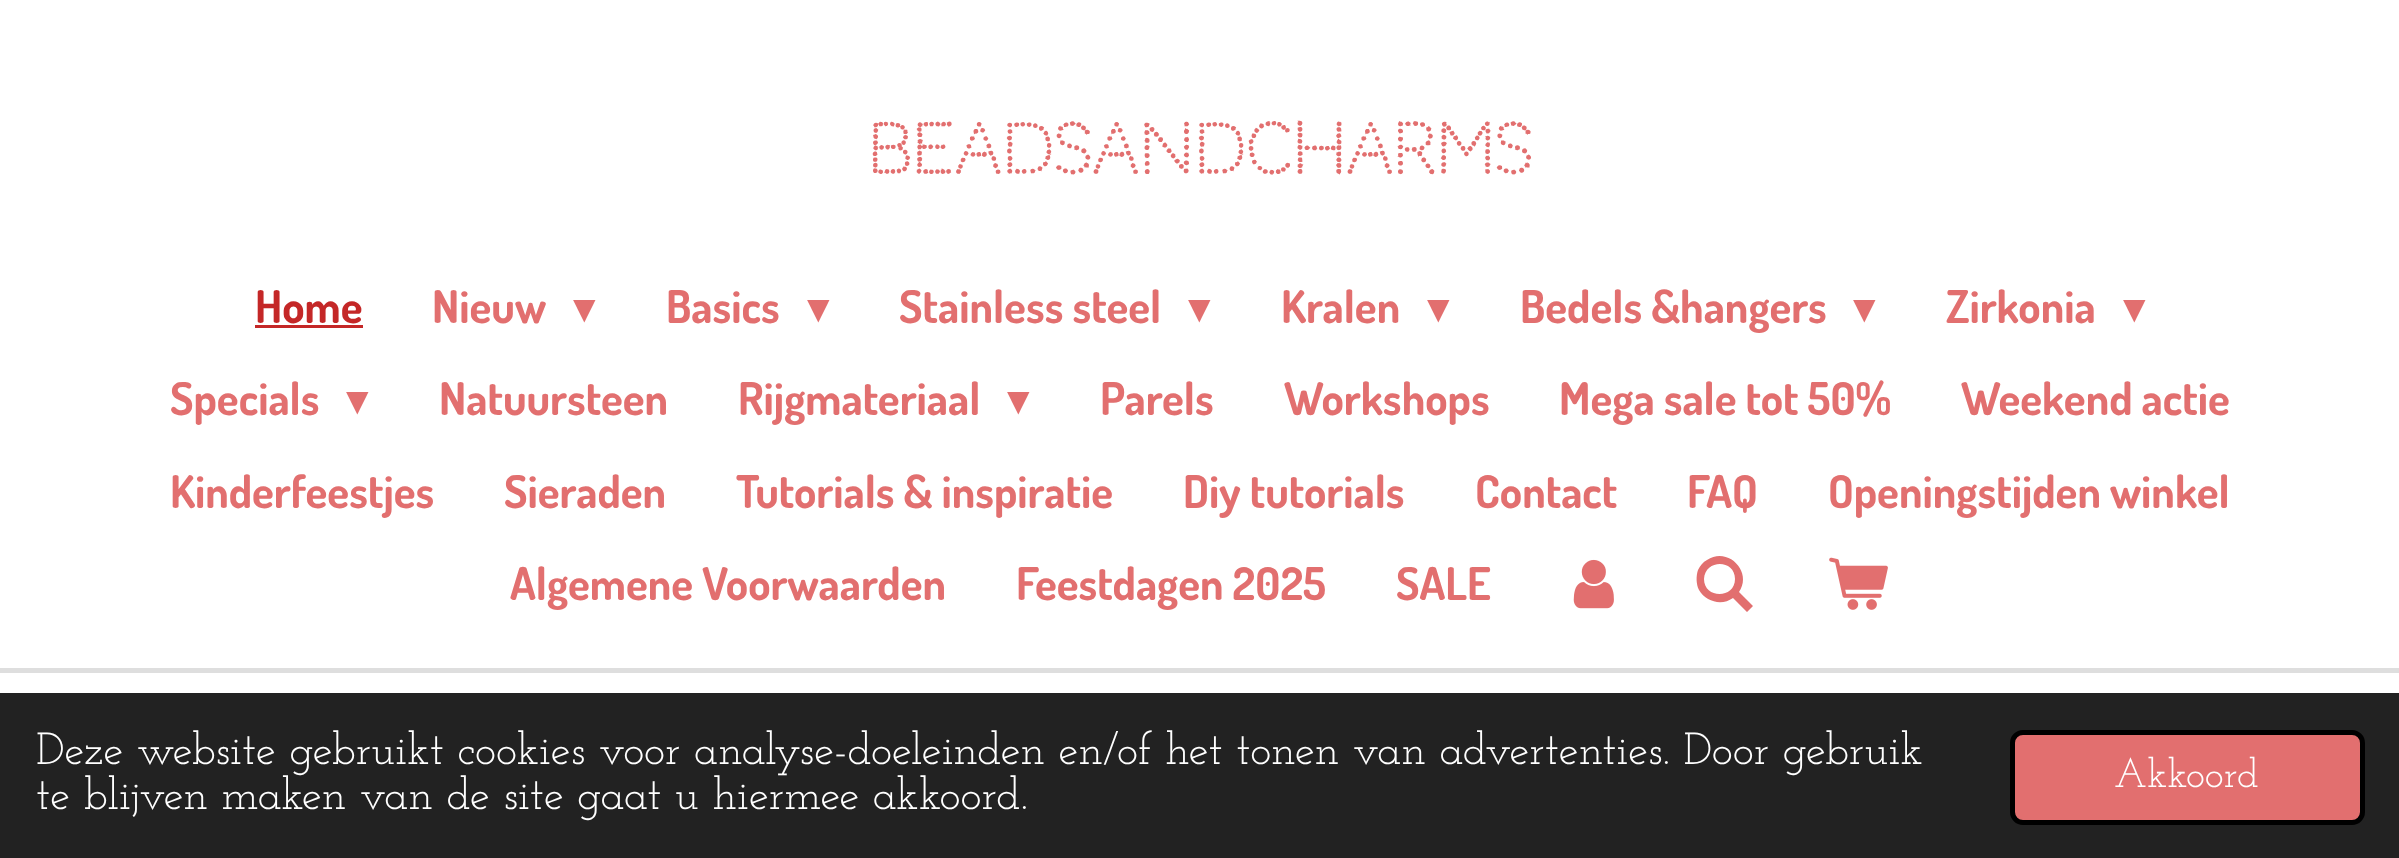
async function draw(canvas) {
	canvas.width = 2399;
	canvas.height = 858;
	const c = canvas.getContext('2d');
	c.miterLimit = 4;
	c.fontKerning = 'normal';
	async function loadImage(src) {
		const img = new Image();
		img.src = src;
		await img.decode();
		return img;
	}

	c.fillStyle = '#fff';
	c.fillRect(0, 0, 2399, 858);
	c.font = 'bold 67.5px Codystar';
	c.fillStyle = '#e26f6f';
	c.fillText('BEADSANDCHARMS', 867, 173);
	c.font = 'bold 45px Dosis';
	c.fillStyle = '#c42727';
	c.fillText('Home', 255, 323);
	c.fillRect(255, 325, 108, 3);
	c.fillStyle = '#e26f6f';
	c.fillText('Nieuw', 432, 323);
	c.font = '45px DejaVu Sans';
	c.fillText('▾', 573, 323);
	c.font = 'bold 45px Dosis';
	c.fillText('Basics', 666, 323);
	c.font = '45px DejaVu Sans';
	c.fillText('▾', 807, 323);
	c.font = 'bold 45px Dosis';
	c.fillText('Stainless steel', 899, 323);
	c.font = '45px DejaVu Sans';
	c.fillText('▾', 1188, 323);
	c.font = 'bold 45px Dosis';
	c.fillText('Kralen', 1281, 323);
	c.font = '45px DejaVu Sans';
	c.fillText('▾', 1427, 323);
	c.font = 'bold 45px Dosis';
	c.fillText('Bedels &hangers', 1520, 323);
	c.font = '45px DejaVu Sans';
	c.fillText('▾', 1853, 323);
	c.font = 'bold 45px Dosis';
	c.fillText('Zirkonia', 1946, 323);
	c.font = '45px DejaVu Sans';
	c.fillText('▾', 2123, 323);
	c.font = 'bold 45px Dosis';
	c.fillText('Specials', 170, 415);
	c.font = '45px DejaVu Sans';
	c.fillText('▾', 346, 415);
	c.font = 'bold 45px Dosis';
	c.fillText('Natuursteen', 439, 415);
	c.fillText('Rijgmateriaal', 738, 415);
	c.font = '45px DejaVu Sans';
	c.fillText('▾', 1007, 415);
	c.font = 'bold 45px Dosis';
	for (const [text, x, y] of [
		['Parels', 1100, 415],
		['Workshops', 1284, 415],
		['Mega sale tot 50%', 1559, 415],
		['Weekend actie', 1961, 415],
		['Kinderfeestjes', 170, 508],
		['Sieraden', 504, 508],
		['Tutorials & inspiratie', 736, 508],
		['Diy tutorials', 1183, 508],
		['Contact', 1475, 508],
		['FAQ', 1687, 508],
		['Openingstijden winkel', 1828, 508],
		['Algemene Voorwaarden', 510, 600],
		['Feestdagen 2025', 1016, 600],
		['SALE', 1396, 600],
	]) {
		c.fillText(text, x, y);
	}
	c.drawImage(await loadImage('img1.png'), 1573, 559, 41, 50);
	c.beginPath();
	c.moveTo(1739, 592);
	c.lineTo(1753, 606);
	c.lineTo(1747, 612);
	c.lineTo(1733, 598);
	c.bezierCurveTo(1722, 606, 1706, 602, 1699, 590);
	c.bezierCurveTo(1696, 584, 1696, 576, 1698, 570);
	c.bezierCurveTo(1700, 566, 1703, 562, 1707, 560);
	c.bezierCurveTo(1728, 546, 1753, 572, 1739, 592);
	c.closePath();
	c.moveTo(1735, 579);
	c.bezierCurveTo(1735, 559, 1705, 559, 1704, 579);
	c.bezierCurveTo(1704, 599, 1735, 599, 1735, 579);
	c.closePath();
	c.fill();
	c.drawImage(await loadImage('img2.png'), 1829, 557, 59, 53);
	c.fillStyle = '#dedede';
	c.fillRect(0, 668, 2399, 5);
	c.fillStyle = '#222';
	c.fillRect(0, 693, 2399, 165);
	c.font = '45px Josefin Slab';
	c.fillStyle = '#fff';
	c.fillText('Deze website gebruikt cookies voor analyse-doeleinden en/of het tonen van advertenties. Door gebruik', 36, 764);
	c.fillText('te blijven maken van de site gaat u hiermee akkoord.', 36, 809);
	c.fillStyle = '#e26f6f';
	c.beginPath();
	c.roundRect(2012.5, 732.5, 350, 90, 10.5);
	c.fill();
	c.strokeStyle = '#000';
	c.lineWidth = 5;
	c.stroke();
	c.font = '40.5px Josefin Slab';
	c.fillStyle = '#fff';
	c.fillText('Akkoord', 2114, 787);
}

draw(document.querySelector('canvas'));
